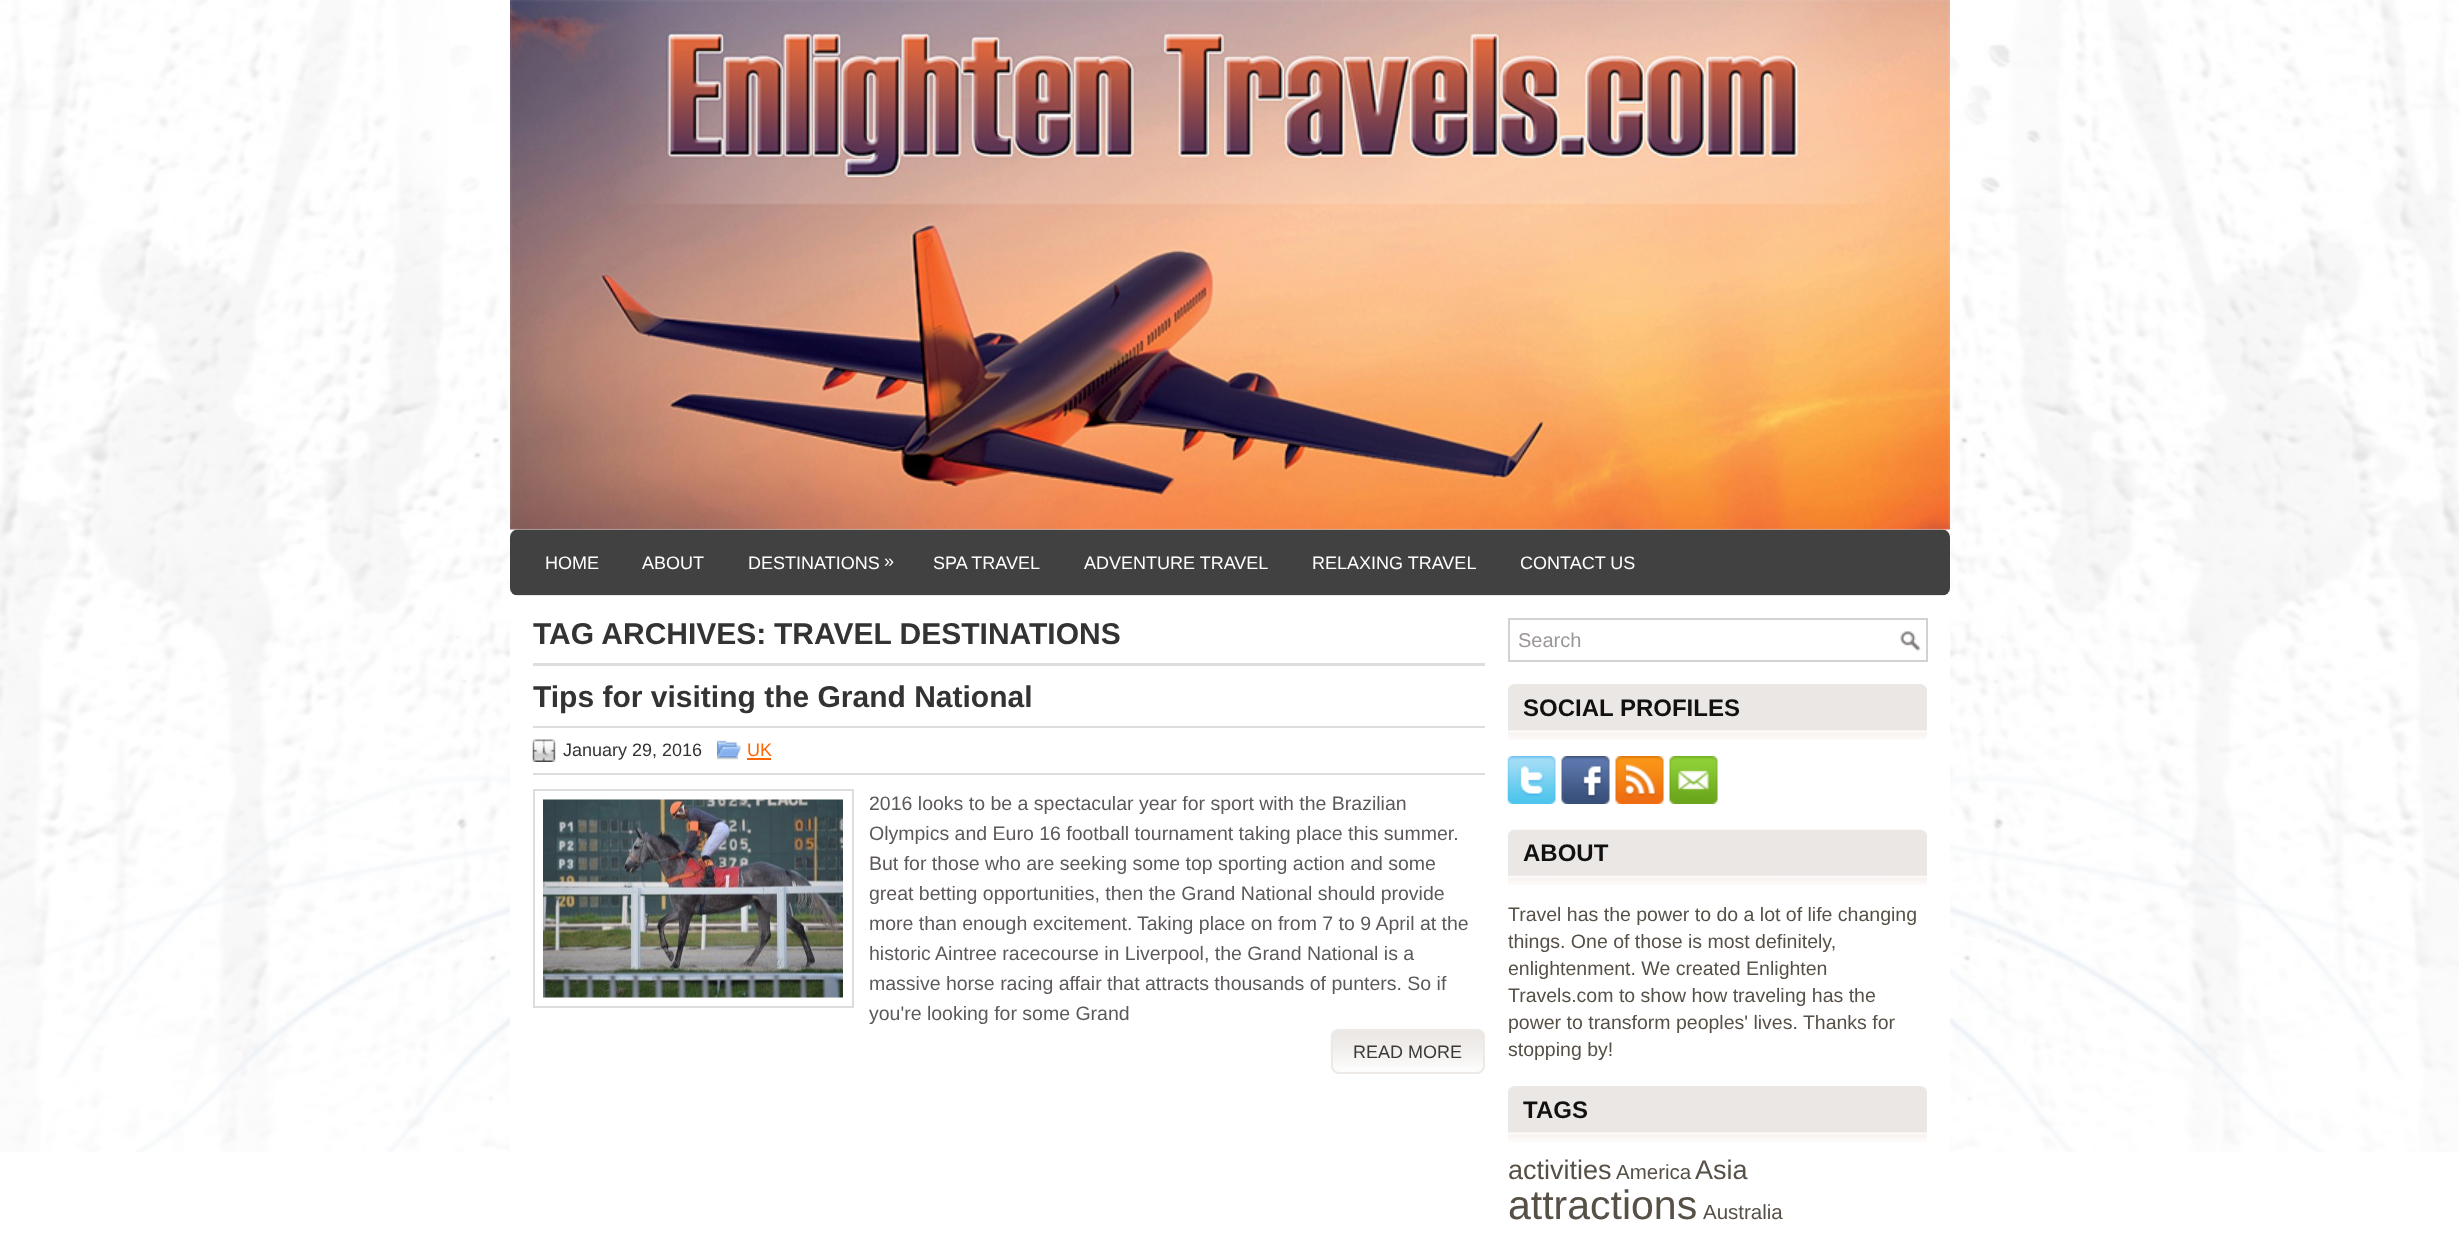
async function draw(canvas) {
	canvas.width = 2459;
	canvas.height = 1246;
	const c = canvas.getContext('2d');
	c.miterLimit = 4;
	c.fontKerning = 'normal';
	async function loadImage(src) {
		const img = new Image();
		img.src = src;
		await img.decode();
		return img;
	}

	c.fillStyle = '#fff';
	c.fillRect(0, 0, 2459, 1246);
	c.drawImage(await loadImage('img1.png'), 0, 0, 2459, 1152);
	c.drawImage(await loadImage('img2.png'), 510, 0, 1440, 530);
	c.drawImage(await loadImage('img3.png'), 510, 529, 1440, 67);
	c.font = '18px Liberation Sans';
	for (const [text, x, y] of [
		['HOME', 545, 569],
		['ABOUT', 642, 569],
		['DESTINATIONS', 748, 569],
		['»', 884, 567],
		['SPA TRAVEL', 933, 569],
		['ADVENTURE TRAVEL', 1084, 569],
		['RELAXING TRAVEL', 1312, 569],
		['CONTACT US', 1520, 569],
	]) {
		c.fillText(text, x, y);
	}
	c.fillRect(510, 631, 1440, 520);
	c.fillStyle = '#ddd';
	c.fillRect(533, 663, 952, 3);
	c.save();
	c.beginPath();
	c.rect(533, 618, 952, 501);
	c.clip();
	c.font = 'bold 30px Liberation Sans';
	c.fillStyle = '#333';
	c.fillText('TAG ARCHIVES:', 533, 644);
	c.restore();
	c.font = 'bold 30px Liberation Sans';
	c.fillStyle = '#333';
	c.fillText('TRAVEL DESTINATIONS', 774, 644);
	c.save();
	c.beginPath();
	c.rect(533, 618, 952, 501);
	c.clip();
	c.fillText('Tips for visiting the Grand National', 533, 707);
	c.restore();
	c.fillStyle = '#ddd';
	c.fillRect(533, 726, 952, 2);
	c.fillRect(533, 773, 952, 2);
	c.drawImage(await loadImage('img4.png'), 532, 739, 24, 23);
	c.font = '18px Liberation Sans';
	c.fillStyle = '#333';
	c.fillText('January 29, 2016', 563, 756);
	c.drawImage(await loadImage('img5.png'), 717, 740, 24, 20);
	c.fillStyle = '#ff6500';
	c.fillText('UK', 747, 756);
	c.fillRect(747, 758, 24, 2);
	c.strokeStyle = '#ddd';
	c.lineWidth = 2;
	c.strokeRect(534, 790, 319, 217);
	c.drawImage(await loadImage('img6.png'), 543, 799, 300, 199);
	c.font = '19.5px Liberation Sans';
	c.fillStyle = '#5d5959';
	for (const [text, x, y] of [
		['2016 looks to be a spectacular year for sport with the Brazilian', 869, 810],
		['Olympics and Euro 16 football tournament taking place this summer.', 869, 840],
		['But for those who are seeking some top sporting action and some', 869, 870],
		['great betting opportunities, then the Grand National should provide', 869, 900],
		['more than enough excitement.', 869, 930],
		['Taking place on from 7 to 9 April at the', 1137, 930],
		['historic Aintree racecourse in Liverpool, the Grand National is a', 869, 960],
		['massive horse racing affair that attracts thousands of punters. So if', 869, 990],
		['you\'re looking for some Grand', 869, 1020],
	]) {
		c.fillText(text, x, y);
	}
	c.fillStyle = '#fdfcfc';
	c.beginPath();
	c.roundRect(1331, 1029, 154, 45, 8);
	c.fill();
	c.drawImage(await loadImage('img7.png'), 1330, 1030, 155, 37);
	c.beginPath();
	c.roundRect(1332, 1030, 152, 43, 7);
	c.strokeStyle = '#ede9e6';
	c.stroke();
	c.font = '18px Liberation Sans';
	c.fillStyle = '#3b3838';
	c.fillText('READ MORE', 1353, 1058);
	c.drawImage(await loadImage('img8.png'), 1900, 631, 21, 21);
	c.strokeStyle = '#d6d1d1';
	c.strokeRect(1509, 619, 418, 42);
	c.font = '20px Liberation Sans';
	c.fillStyle = '#9b9696';
	c.fillText('Search', 1518, 647);
	c.drawImage(await loadImage('img9.png'), 1508, 684, 419, 56);
	c.font = 'bold 24px Liberation Sans';
	c.fillStyle = '#111';
	c.fillText('SOCIAL PROFILES', 1523, 716);
	c.drawImage(await loadImage('img10.png'), 1507, 756, 49, 48);
	c.drawImage(await loadImage('img11.png'), 1561, 756, 49, 48);
	c.drawImage(await loadImage('img12.png'), 1615, 756, 49, 48);
	c.drawImage(await loadImage('img13.png'), 1669, 756, 49, 48);
	c.drawImage(await loadImage('img14.png'), 1508, 829, 419, 56);
	c.fillText('ABOUT', 1523, 861);
	c.font = '19.5px Liberation Sans';
	c.fillStyle = '#565047';
	for (const [text, x, y] of [
		['Travel has the power to do a lot of life changing', 1508, 921],
		['things. One of those is most definitely,', 1508, 948],
		['enlightenment. We created Enlighten', 1508, 975],
		['Travels.com to show how traveling has the', 1508, 1002],
		['power to transform peoples\' lives. Thanks for', 1508, 1029],
		['stopping by!', 1508, 1056],
	]) {
		c.fillText(text, x, y);
	}
	c.drawImage(await loadImage('img9.png'), 1508, 1086, 419, 56);
	c.font = 'bold 24px Liberation Sans';
	c.fillStyle = '#111';
	c.fillText('TAGS', 1523, 1118);
	c.font = '27px Liberation Sans';
	c.fillStyle = '#565047';
	c.fillText('activities', 1508, 1179);
	c.font = '20.5px Liberation Sans';
	c.fillText('America', 1616, 1179);
	c.font = '27px Liberation Sans';
	c.fillText('Asia', 1695, 1179);
	c.font = '41px Liberation Sans';
	c.fillText('attractions', 1508, 1219);
	c.font = '20.5px Liberation Sans';
	c.fillText('Australia', 1703, 1219);
}

draw(document.querySelector('canvas'));
